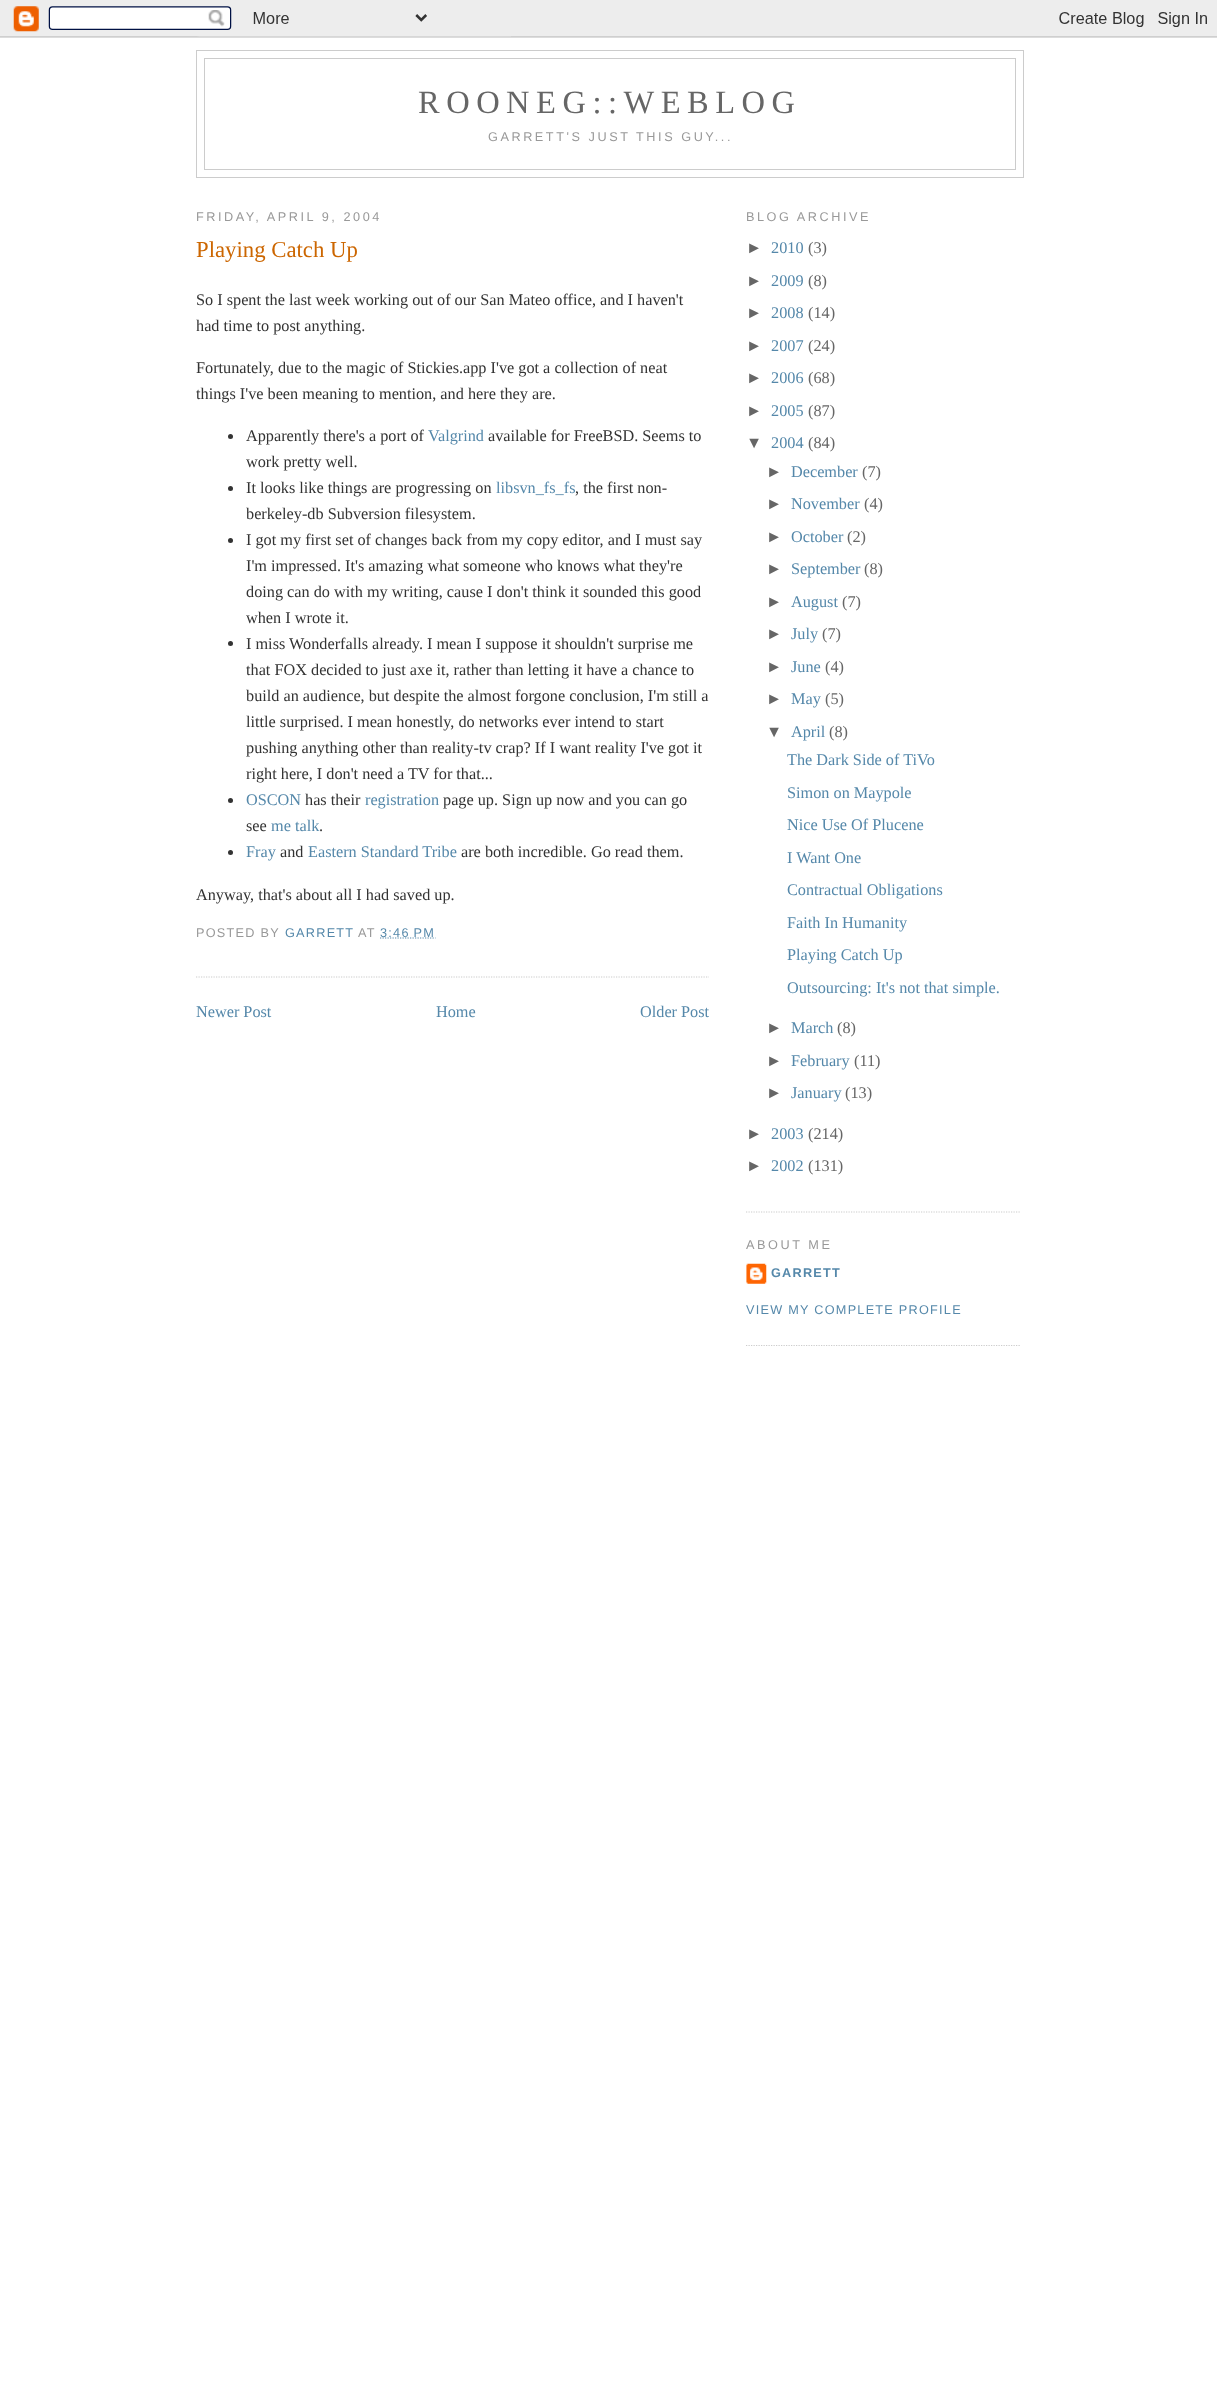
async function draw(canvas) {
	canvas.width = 1217;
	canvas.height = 2392;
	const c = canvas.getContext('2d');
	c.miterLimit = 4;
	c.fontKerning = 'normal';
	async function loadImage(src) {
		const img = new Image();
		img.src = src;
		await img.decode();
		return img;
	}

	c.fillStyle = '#fff';
	c.fillRect(0, 0, 1217, 2392);
	c.drawImage(await loadImage('img1.png'), 0, 0, 1217, 38);
	c.strokeStyle = '#ccc';
	c.strokeRect(196.5, 50.5, 827, 127);
	c.strokeRect(204.5, 58.5, 811, 111);
	c.letterSpacing = '6.5px';
	c.font = '32.5px Liberation Serif';
	c.fillStyle = '#666';
	c.fillText('ROONEG::WEBLOG', 418, 113);
	c.letterSpacing = '2.55px';
	c.font = '12.7px Liberation Sans';
	c.fillStyle = '#999';
	c.fillText('GARRETT\'S JUST THIS GUY...', 488, 141);
	c.fillText('FRIDAY, APRIL 9, 2004', 196, 221);
	c.beginPath();
	c.moveTo(196, 977);
	c.lineTo(709, 977);
	c.lineWidth = 1.2;
	c.setLineDash([1.25, 1.25]);
	c.stroke();
	c.letterSpacing = '0px';
	c.font = '22.75px Liberation Serif';
	c.fillStyle = '#c60';
	c.fillText('Playing Catch Up', 196, 257);
	c.font = '16.25px Liberation Serif';
	c.fillStyle = '#333';
	for (const [text, x, y] of [
		['So I spent the last week working out of our San Mateo office, and I haven\'t', 196, 305],
		['had time to post anything.', 196, 331],
		['Fortunately, due to the magic of Stickies.app I\'ve got a collection of neat', 196, 373],
		['things I\'ve been meaning to mention, and here they are.', 196, 399],
	]) {
		c.fillText(text, x, y);
	}
	c.beginPath();
	c.arc(230.5, 436.5, 2.5, 0, 2 * Math.PI);
	c.fill();
	c.fillText('Apparently there\'s a port of', 246, 441);
	c.fillStyle = '#58a';
	c.fillText('Valgrind', 428, 441);
	c.fillStyle = '#333';
	c.fillText('available for FreeBSD. Seems to', 488, 441);
	c.fillText('work pretty well.', 246, 467);
	c.beginPath();
	c.arc(230.5, 488.5, 2.5, 0, 2 * Math.PI);
	c.fill();
	c.fillText('It looks like things are progressing on', 246, 493);
	c.fillStyle = '#58a';
	c.fillText('libsvn_fs_fs', 496, 493);
	c.fillStyle = '#333';
	c.fillText(', the first non-', 575, 493);
	c.fillText('berkeley-db Subversion filesystem.', 246, 519);
	c.beginPath();
	c.arc(230.5, 540.5, 2.5, 0, 2 * Math.PI);
	c.fill();
	for (const [text, x, y] of [
		['I got my first set of changes back from my copy editor, and I must say', 246, 545],
		['I\'m impressed. It\'s amazing what someone who knows what they\'re', 246, 571],
		['doing can do with my writing, cause I don\'t think it sounded this good', 246, 597],
		['when I wrote it.', 246, 623],
	]) {
		c.fillText(text, x, y);
	}
	c.beginPath();
	c.arc(230.5, 643.5, 2.5, 0, 2 * Math.PI);
	c.fill();
	for (const [text, x, y] of [
		['I miss Wonderfalls already. I mean I suppose it shouldn\'t surprise me', 246, 649],
		['that FOX decided to just axe it, rather than letting it have a chance to', 246, 675],
		['build an audience, but despite the almost forgone conclusion, I\'m still a', 246, 701],
		['little surprised. I mean honestly, do networks ever intend to start', 246, 727],
		['pushing anything other than reality-tv crap? If I want reality I\'ve got it', 246, 753],
		['right here, I don\'t need a TV for that...', 246, 779],
	]) {
		c.fillText(text, x, y);
	}
	c.beginPath();
	c.arc(230.5, 800.5, 2.5, 0, 2 * Math.PI);
	c.fill();
	c.fillStyle = '#58a';
	c.fillText('OSCON', 246, 805);
	c.fillStyle = '#333';
	c.fillText('has their', 305, 805);
	c.fillStyle = '#58a';
	c.fillText('registration', 365, 805);
	c.fillStyle = '#333';
	c.fillText('page up. Sign up now and you can go', 443, 805);
	c.fillText('see', 246, 831);
	c.fillStyle = '#58a';
	c.fillText('me talk', 271, 831);
	c.fillStyle = '#333';
	c.fillText('.', 319, 831);
	c.beginPath();
	c.arc(230.5, 852.5, 2.5, 0, 2 * Math.PI);
	c.fill();
	c.fillStyle = '#58a';
	c.fillText('Fray', 246, 857);
	c.fillStyle = '#333';
	c.fillText('and', 280, 857);
	c.fillStyle = '#58a';
	c.fillText('Eastern Standard Tribe', 308, 857);
	c.fillStyle = '#333';
	c.fillText('are both incredible. Go read them.', 461, 857);
	c.fillText('Anyway, that\'s about all I had saved up.', 196, 900);
	c.letterSpacing = '1.25px';
	c.font = '12.7px Liberation Sans';
	c.fillStyle = '#999';
	c.fillText('POSTED BY', 196, 937);
	c.fillStyle = '#58a';
	c.fillText('GARRETT', 285, 937);
	c.fillStyle = '#999';
	c.fillText('AT', 358, 937);
	c.beginPath();
	c.moveTo(380, 938);
	c.lineTo(435.5, 938);
	c.strokeStyle = '#58a';
	c.stroke();
	c.fillStyle = '#58a';
	c.fillText('3:46 PM', 380, 937);
	c.letterSpacing = '0px';
	c.font = '16.25px Liberation Serif';
	for (const [text, x, y] of [
		['Newer Post', 196, 1017],
		['Home', 436, 1017],
		['Older Post', 640, 1017],
	]) {
		c.fillText(text, x, y);
	}
	c.beginPath();
	c.moveTo(746, 1212);
	c.lineTo(1021, 1212);
	c.strokeStyle = '#ccc';
	c.stroke();
	c.letterSpacing = '2.55px';
	c.font = '12.7px Liberation Sans';
	c.fillStyle = '#999';
	c.fillText('BLOG ARCHIVE', 746, 221);
	c.letterSpacing = '0px';
	c.font = '16.25px Liberation Sans';
	c.fillStyle = '#666';
	c.fillText('►', 746, 253);
	c.font = '16.25px Liberation Serif';
	c.fillStyle = '#58a';
	c.fillText('2010', 771, 253);
	c.fillStyle = '#666';
	c.fillText('(3)', 808, 253);
	c.font = '16.25px Liberation Sans';
	c.fillText('►', 746, 286);
	c.font = '16.25px Liberation Serif';
	c.fillStyle = '#58a';
	c.fillText('2009', 771, 286);
	c.fillStyle = '#666';
	c.fillText('(8)', 808, 286);
	c.font = '16.25px Liberation Sans';
	c.fillText('►', 746, 318);
	c.font = '16.25px Liberation Serif';
	c.fillStyle = '#58a';
	c.fillText('2008', 771, 318);
	c.fillStyle = '#666';
	c.fillText('(14)', 808, 318);
	c.font = '16.25px Liberation Sans';
	c.fillText('►', 746, 351);
	c.font = '16.25px Liberation Serif';
	c.fillStyle = '#58a';
	c.fillText('2007', 771, 351);
	c.fillStyle = '#666';
	c.fillText('(24)', 808, 351);
	c.font = '16.25px Liberation Sans';
	c.fillText('►', 746, 383);
	c.font = '16.25px Liberation Serif';
	c.fillStyle = '#58a';
	c.fillText('2006', 771, 383);
	c.fillStyle = '#666';
	c.fillText('(68)', 808, 383);
	c.font = '16.25px Liberation Sans';
	c.fillText('►', 746, 416);
	c.font = '16.25px Liberation Serif';
	c.fillStyle = '#58a';
	c.fillText('2005', 771, 416);
	c.fillStyle = '#666';
	c.fillText('(87)', 808, 416);
	c.font = '16.25px Liberation Sans';
	c.fillText('▼', 746, 448);
	c.font = '16.25px Liberation Serif';
	c.fillStyle = '#58a';
	c.fillText('2004', 771, 448);
	c.fillStyle = '#666';
	c.fillText('(84)', 808, 448);
	c.font = '16.25px Liberation Sans';
	c.fillText('►', 766, 477);
	c.font = '16.25px Liberation Serif';
	c.fillStyle = '#58a';
	c.fillText('December', 791, 477);
	c.fillStyle = '#666';
	c.fillText('(7)', 862, 477);
	c.font = '16.25px Liberation Sans';
	c.fillText('►', 766, 509);
	c.font = '16.25px Liberation Serif';
	c.fillStyle = '#58a';
	c.fillText('November', 791, 509);
	c.fillStyle = '#666';
	c.fillText('(4)', 864, 509);
	c.font = '16.25px Liberation Sans';
	c.fillText('►', 766, 542);
	c.font = '16.25px Liberation Serif';
	c.fillStyle = '#58a';
	c.fillText('October', 791, 542);
	c.fillStyle = '#666';
	c.fillText('(2)', 847, 542);
	c.font = '16.25px Liberation Sans';
	c.fillText('►', 766, 574);
	c.font = '16.25px Liberation Serif';
	c.fillStyle = '#58a';
	c.fillText('September', 791, 574);
	c.fillStyle = '#666';
	c.fillText('(8)', 864, 574);
	c.font = '16.25px Liberation Sans';
	c.fillText('►', 766, 607);
	c.font = '16.25px Liberation Serif';
	c.fillStyle = '#58a';
	c.fillText('August', 791, 607);
	c.fillStyle = '#666';
	c.fillText('(7)', 842, 607);
	c.font = '16.25px Liberation Sans';
	c.fillText('►', 766, 639);
	c.font = '16.25px Liberation Serif';
	c.fillStyle = '#58a';
	c.fillText('July', 791, 639);
	c.fillStyle = '#666';
	c.fillText('(7)', 822, 639);
	c.font = '16.25px Liberation Sans';
	c.fillText('►', 766, 672);
	c.font = '16.25px Liberation Serif';
	c.fillStyle = '#58a';
	c.fillText('June', 791, 672);
	c.fillStyle = '#666';
	c.fillText('(4)', 825, 672);
	c.font = '16.25px Liberation Sans';
	c.fillText('►', 766, 704);
	c.font = '16.25px Liberation Serif';
	c.fillStyle = '#58a';
	c.fillText('May', 791, 704);
	c.fillStyle = '#666';
	c.fillText('(5)', 825, 704);
	c.font = '16.25px Liberation Sans';
	c.fillText('▼', 766, 737);
	c.font = '16.25px Liberation Serif';
	c.fillStyle = '#58a';
	c.fillText('April', 791, 737);
	c.fillStyle = '#666';
	c.fillText('(8)', 829, 737);
	c.fillStyle = '#58a';
	for (const [text, x, y] of [
		['The Dark Side of TiVo', 787, 765],
		['Simon on Maypole', 787, 798],
		['Nice Use Of Plucene', 787, 830],
		['I Want One', 787, 863],
		['Contractual Obligations', 787, 895],
		['Faith In Humanity', 787, 928],
		['Playing Catch Up', 787, 960],
		['Outsourcing: It\'s not that simple.', 787, 993],
	]) {
		c.fillText(text, x, y);
	}
	c.font = '16.25px Liberation Sans';
	c.fillStyle = '#666';
	c.fillText('►', 766, 1033);
	c.font = '16.25px Liberation Serif';
	c.fillStyle = '#58a';
	c.fillText('March', 791, 1033);
	c.fillStyle = '#666';
	c.fillText('(8)', 837, 1033);
	c.font = '16.25px Liberation Sans';
	c.fillText('►', 766, 1066);
	c.font = '16.25px Liberation Serif';
	c.fillStyle = '#58a';
	c.fillText('February', 791, 1066);
	c.fillStyle = '#666';
	c.fillText('(11)', 854, 1066);
	c.font = '16.25px Liberation Sans';
	c.fillText('►', 766, 1098);
	c.font = '16.25px Liberation Serif';
	c.fillStyle = '#58a';
	c.fillText('January', 791, 1098);
	c.fillStyle = '#666';
	c.fillText('(13)', 845, 1098);
	c.font = '16.25px Liberation Sans';
	c.fillText('►', 746, 1139);
	c.font = '16.25px Liberation Serif';
	c.fillStyle = '#58a';
	c.fillText('2003', 771, 1139);
	c.fillStyle = '#666';
	c.fillText('(214)', 808, 1139);
	c.font = '16.25px Liberation Sans';
	c.fillText('►', 746, 1171);
	c.font = '16.25px Liberation Serif';
	c.fillStyle = '#58a';
	c.fillText('2002', 771, 1171);
	c.fillStyle = '#666';
	c.fillText('(131)', 808, 1171);
	c.beginPath();
	c.moveTo(746, 1345.5);
	c.lineTo(1021, 1345.5);
	c.stroke();
	c.letterSpacing = '2.55px';
	c.font = '12.7px Liberation Sans';
	c.fillStyle = '#999';
	c.fillText('ABOUT ME', 746, 1249);
	c.drawImage(await loadImage('img2.png'), 746, 1263, 21, 21);
	c.letterSpacing = '1.25px';
	c.font = 'bold 12.7px Liberation Sans';
	c.fillStyle = '#58a';
	c.fillText('GARRETT', 771, 1277);
	c.font = '12.7px Liberation Sans';
	c.fillText('VIEW MY COMPLETE PROFILE', 746, 1314);
}

draw(document.querySelector('canvas'));
